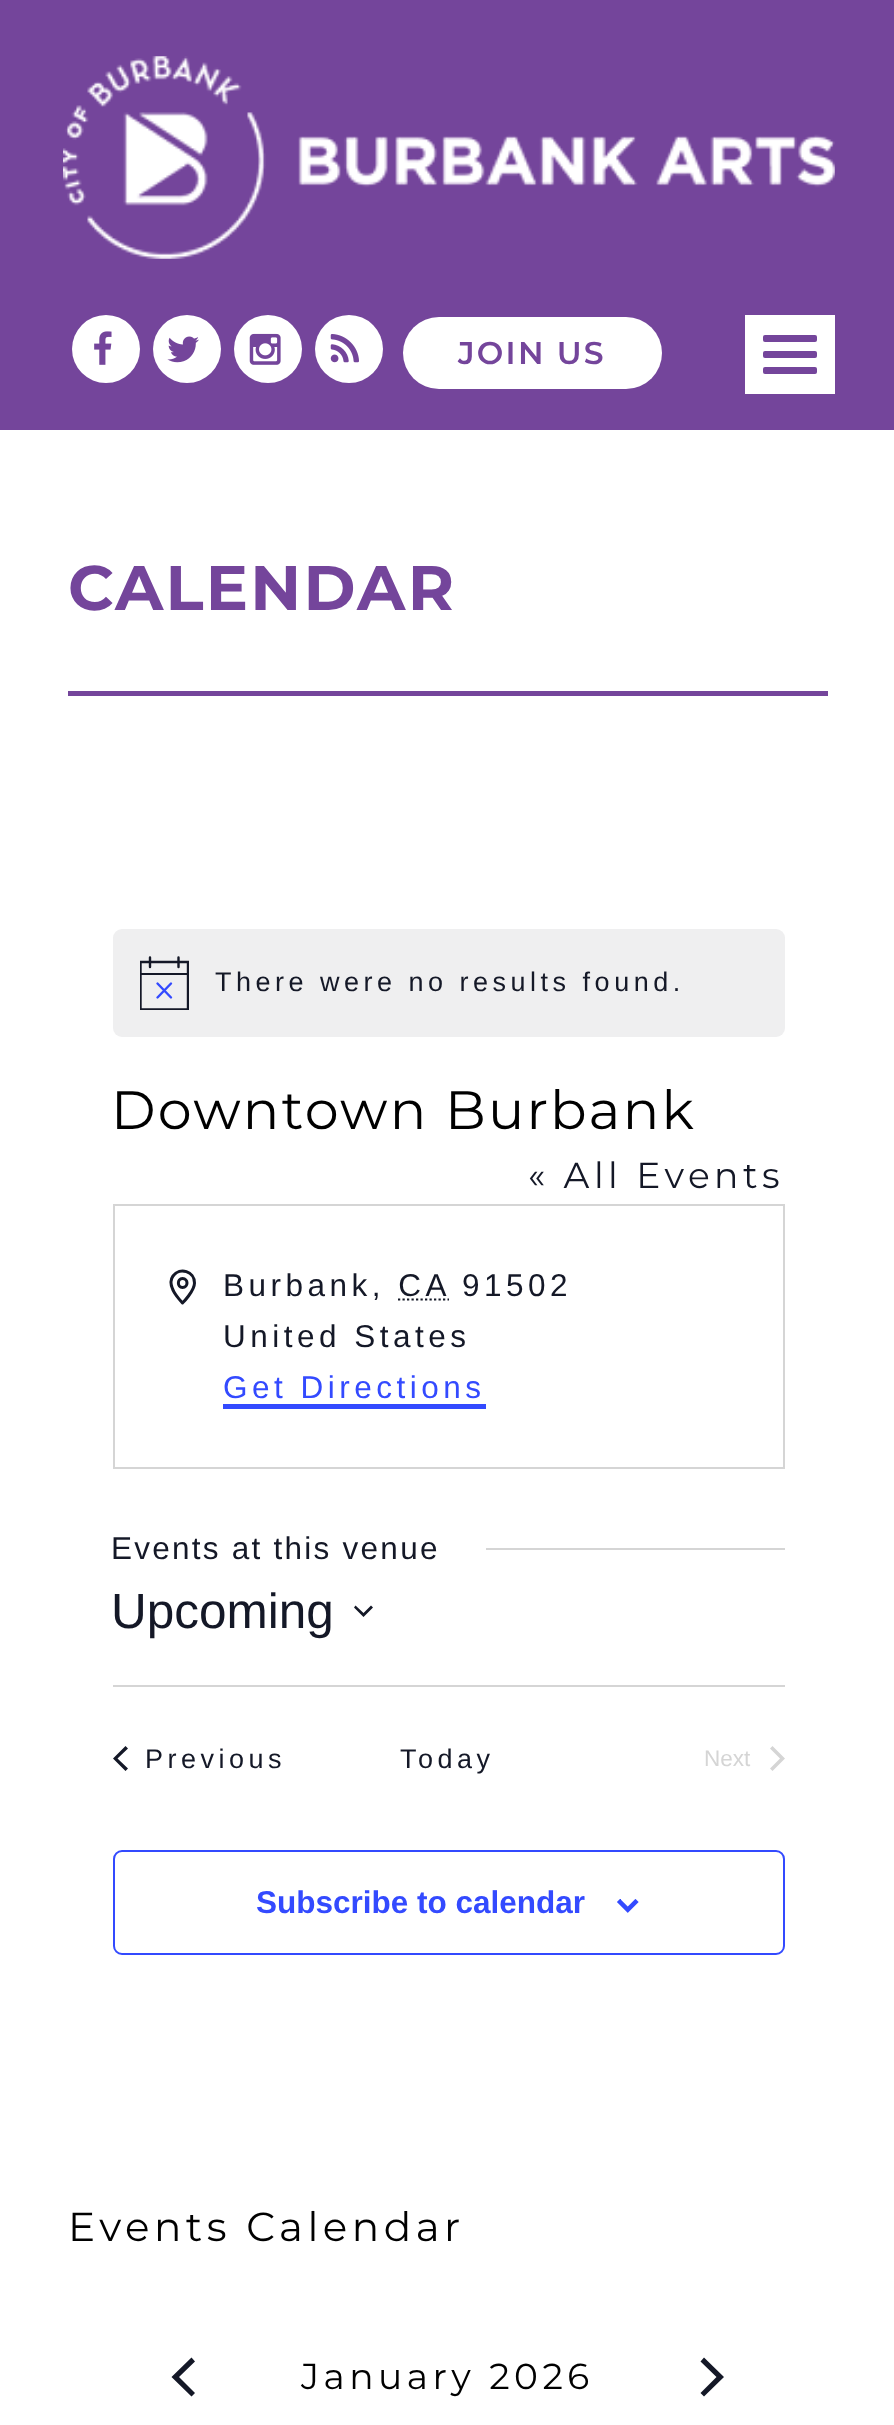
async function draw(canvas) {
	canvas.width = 894;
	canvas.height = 2425;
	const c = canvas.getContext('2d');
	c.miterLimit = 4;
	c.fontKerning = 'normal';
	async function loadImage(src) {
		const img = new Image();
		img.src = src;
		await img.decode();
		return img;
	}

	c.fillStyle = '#fff';
	c.fillRect(0, 0, 894, 2425);
	c.fillStyle = '#74459b';
	c.fillRect(0, 0, 894, 430);
	c.drawImage(await loadImage('img1.png'), 63, 56, 772, 203);
	c.fillStyle = '#fff';
	c.beginPath();
	c.arc(106, 349, 34, 0, 2 * Math.PI);
	c.fill();
	c.drawImage(await loadImage('img2.png'), 94, 331, 18, 34);
	c.beginPath();
	c.arc(187, 349, 34, 0, 2 * Math.PI);
	c.fill();
	c.drawImage(await loadImage('img3.png'), 167, 336, 32, 27);
	c.beginPath();
	c.arc(268, 349, 34, 0, 2 * Math.PI);
	c.fill();
	c.drawImage(await loadImage('img4.png'), 249, 333, 32, 32);
	c.beginPath();
	c.arc(349, 349, 34, 0, 2 * Math.PI);
	c.fill();
	c.drawImage(await loadImage('img5.png'), 330, 334, 29, 29);
	c.beginPath();
	c.roundRect(403, 317, 259, 72, 36);
	c.fill();
	c.letterSpacing = '2.25px';
	c.font = '600 31.5px Montserrat';
	c.fillStyle = '#74459b';
	c.fillText('JOIN US', 458, 364);
	c.fillStyle = '#fff';
	c.fillRect(745, 315, 90, 79);
	c.fillStyle = '#74459b';
	c.beginPath();
	c.roundRect(763, 335, 54, 7, 2);
	c.fill();
	c.beginPath();
	c.roundRect(763, 351, 54, 7, 2);
	c.fill();
	c.beginPath();
	c.roundRect(763, 367, 54, 7, 2);
	c.fill();
	c.font = 'bold 63px Montserrat';
	c.fillText('CALENDAR', 68, 610);
	c.fillRect(68, 691, 760, 5);
	c.fillStyle = '#efeff0';
	c.beginPath();
	c.roundRect(113, 929, 672, 108, 9);
	c.fill();
	c.save();
	c.beginPath();
	c.rect(140, 956, 49, 54);
	c.clip();
	c.beginPath();
	c.moveTo(140.5, 962);
	c.lineTo(188, 962);
	c.lineTo(188, 1009.5);
	c.lineTo(140.5, 1009.5);
	c.closePath();
	c.strokeStyle = '#141827';
	c.lineWidth = 2.4;
	c.stroke();
	c.restore();
	c.beginPath();
	c.moveTo(157.5, 983.5);
	c.lineTo(171, 997.5);
	c.moveTo(171, 983.5);
	c.lineTo(157.5, 997.5);
	c.strokeStyle = '#334aff';
	c.lineWidth = 2.4;
	c.lineCap = 'round';
	c.stroke();
	c.beginPath();
	c.moveTo(150, 957.5);
	c.lineTo(150, 967);
	c.moveTo(178.5, 957.5);
	c.lineTo(178.5, 967);
	c.strokeStyle = '#141827';
	c.stroke();
	c.fillStyle = '#141827';
	c.fillRect(140, 973, 49, 2);
	c.letterSpacing = '4.5px';
	c.font = '27px Liberation Sans';
	c.fillText('There were no results found.', 215, 991);
	c.letterSpacing = '2.25px';
	c.font = '54px Montserrat';
	c.fillStyle = '#000';
	c.fillText('Downtown Burbank', 111, 1129);
	c.letterSpacing = '4.5px';
	c.font = '36px Montserrat';
	c.fillStyle = '#141827';
	c.fillText('« All Events', 528, 1188);
	c.strokeStyle = '#d5d5d5';
	c.lineWidth = 2;
	c.strokeRect(114, 1205, 670, 263);
	c.beginPath();
	c.moveTo(194.5, 1283);
	c.bezierCurveTo(194.5, 1291, 182.5, 1303, 182.5, 1303);
	c.bezierCurveTo(176.5, 1296.5, 166.5, 1285, 173, 1276);
	c.bezierCurveTo(180, 1266.5, 194.5, 1271.5, 194.5, 1283);
	c.closePath();
	c.moveTo(182.5, 1287.5);
	c.bezierCurveTo(188.5, 1287.5, 188.5, 1278.5, 182.5, 1278.5);
	c.bezierCurveTo(177, 1278.5, 177, 1287.5, 182.5, 1287.5);
	c.closePath();
	c.strokeStyle = '#141827';
	c.lineWidth = 3;
	c.lineJoin = 'round';
	c.stroke();
	c.font = '31.5px Liberation Sans';
	c.fillText('Burbank, CA', 223, 1296);
	c.fillText('91502', 462, 1296);
	c.beginPath();
	c.moveTo(398, 1299.5);
	c.lineTo(449, 1299.5);
	c.lineWidth = 2.2;
	c.lineCap = 'butt';
	c.lineJoin = 'miter';
	c.setLineDash([2.25, 2.25]);
	c.stroke();
	c.fillText('United States', 223, 1347);
	c.fillStyle = '#334aff';
	c.fillText('Get Directions', 223, 1398);
	c.fillRect(223, 1404, 263, 5);
	c.letterSpacing = '2.25px';
	c.fillStyle = '#141827';
	c.fillText('Events at this venue', 111, 1559);
	c.fillStyle = '#d5d5d5';
	c.fillRect(486, 1548, 299, 2);
	c.letterSpacing = '0px';
	c.font = '49.5px Liberation Sans';
	c.fillStyle = '#141827';
	c.fillText('Upcoming', 111, 1628);
	c.beginPath();
	c.moveTo(355.5, 1605.5);
	c.lineTo(363.5, 1613);
	c.lineTo(371, 1605.5);
	c.lineTo(373, 1607.5);
	c.lineTo(363.5, 1617);
	c.lineTo(354, 1607.5);
	c.closePath();
	c.fill('evenodd');
	c.fillStyle = '#d5d5d5';
	c.fillRect(113, 1685, 672, 2);
	c.fillStyle = '#141827';
	c.beginPath();
	c.moveTo(128, 1768.5);
	c.lineTo(125.5, 1771);
	c.lineTo(113, 1758.5);
	c.lineTo(125.5, 1746);
	c.lineTo(128, 1748.5);
	c.lineTo(117.5, 1758.5);
	c.closePath();
	c.fill();
	c.letterSpacing = '4.5px';
	c.font = '27px Liberation Sans';
	c.fillText('Previous', 145, 1768);
	c.fillText('Today', 400, 1768);
	c.letterSpacing = '0px';
	c.font = '22.5px Liberation Sans';
	c.fillStyle = '#d5d5d5';
	c.fillText('Next', 704, 1766);
	c.beginPath();
	c.moveTo(770, 1748.5);
	c.lineTo(772.5, 1746);
	c.lineTo(785, 1758.5);
	c.lineTo(772.5, 1771);
	c.lineTo(770, 1768.5);
	c.lineTo(780, 1758.5);
	c.closePath();
	c.fill();
	c.beginPath();
	c.roundRect(114, 1851, 670, 103, 8);
	c.strokeStyle = '#334aff';
	c.lineWidth = 2;
	c.setLineDash([]);
	c.stroke();
	c.font = 'bold 31.5px Liberation Sans';
	c.fillStyle = '#334aff';
	c.fillText('Subscribe to calendar', 256, 1913);
	c.drawImage(await loadImage('img6.png'), 617, 1899, 22, 14);
	c.letterSpacing = '4.5px';
	c.font = '40.5px Montserrat';
	c.fillStyle = '#000';
	c.fillText('Events Calendar', 68, 2241);
	c.fillStyle = '#141827';
	c.beginPath();
	c.moveTo(195, 2393);
	c.lineTo(191.5, 2396.5);
	c.lineTo(171.5, 2377);
	c.lineTo(191.5, 2357.5);
	c.lineTo(195, 2361.5);
	c.lineTo(179, 2377);
	c.closePath();
	c.fill();
	c.font = '36px Montserrat';
	c.fillStyle = '#000';
	c.fillText('January 2026', 301, 2389);
	c.fillStyle = '#141827';
	c.beginPath();
	c.moveTo(700.5, 2361.5);
	c.lineTo(704, 2357.5);
	c.lineTo(724, 2377);
	c.lineTo(704, 2396.5);
	c.lineTo(700.5, 2393);
	c.lineTo(716.5, 2377);
	c.closePath();
	c.fill();
}

draw(document.querySelector('canvas'));
